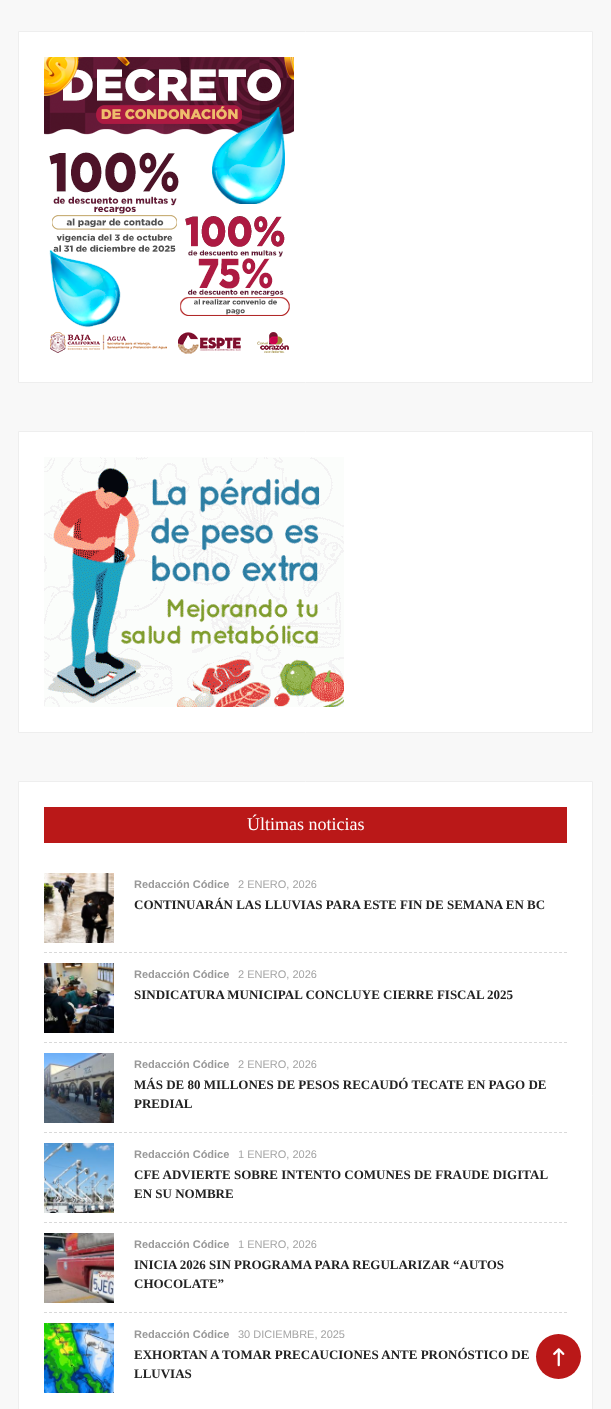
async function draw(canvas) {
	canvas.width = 611;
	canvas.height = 1409;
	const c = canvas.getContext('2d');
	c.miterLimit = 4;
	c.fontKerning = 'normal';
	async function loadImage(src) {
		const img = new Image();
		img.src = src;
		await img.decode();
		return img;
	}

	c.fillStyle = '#f8f8f8';
	c.fillRect(0, 0, 611, 1409);
	c.fillStyle = '#fff';
	c.beginPath();
	c.rect(18.5, 31.5, 574, 351);
	c.fill();
	c.strokeStyle = '#eee';
	c.stroke();
	c.drawImage(await loadImage('img1.png'), 44, 57, 250, 297);
	c.beginPath();
	c.rect(18.5, 431.5, 574, 301);
	c.fill();
	c.stroke();
	c.drawImage(await loadImage('img2.png'), 44, 457, 300, 250);
	c.beginPath();
	c.rect(18.5, 781.5, 574, 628);
	c.fill();
	c.stroke();
	c.fillStyle = '#ba1818';
	c.fillRect(44, 807, 523, 36);
	c.font = '18px Liberation Serif';
	c.fillStyle = '#fff';
	c.fillText('Últimas noticias', 247, 830);
	c.beginPath();
	c.moveTo(44, 952.5);
	c.lineTo(567, 952.5);
	c.strokeStyle = '#d9d9d9';
	c.setLineDash([3, 2]);
	c.stroke();
	c.drawImage(await loadImage('img3.png'), 44, 873, 70, 70);
	c.font = 'bold 11px Liberation Sans';
	c.fillStyle = '#999';
	c.fillText('Redacción Códice', 134, 888);
	c.font = '11px Liberation Sans';
	c.fillStyle = '#a4a4a4';
	c.fillText('2 ENERO, 2026', 238, 888);
	c.font = 'bold 13px Liberation Serif';
	c.fillStyle = '#222';
	c.fillText('CONTINUARÁN LAS LLUVIAS PARA ESTE FIN DE SEMANA EN BC', 134, 909);
	c.beginPath();
	c.moveTo(44, 1042.5);
	c.lineTo(567, 1042.5);
	c.stroke();
	c.drawImage(await loadImage('img4.png'), 44, 963, 70, 70);
	c.font = 'bold 11px Liberation Sans';
	c.fillStyle = '#999';
	c.fillText('Redacción Códice', 134, 978);
	c.font = '11px Liberation Sans';
	c.fillStyle = '#a4a4a4';
	c.fillText('2 ENERO, 2026', 238, 978);
	c.font = 'bold 13px Liberation Serif';
	c.fillStyle = '#222';
	c.fillText('SINDICATURA MUNICIPAL CONCLUYE CIERRE FISCAL 2025', 134, 999);
	c.beginPath();
	c.moveTo(44, 1132.5);
	c.lineTo(567, 1132.5);
	c.stroke();
	c.drawImage(await loadImage('img5.png'), 44, 1053, 70, 70);
	c.font = 'bold 11px Liberation Sans';
	c.fillStyle = '#999';
	c.fillText('Redacción Códice', 134, 1068);
	c.font = '11px Liberation Sans';
	c.fillStyle = '#a4a4a4';
	c.fillText('2 ENERO, 2026', 238, 1068);
	c.font = 'bold 13px Liberation Serif';
	c.fillStyle = '#222';
	c.fillText('MÁS DE 80 MILLONES DE PESOS RECAUDÓ TECATE EN PAGO DE', 134, 1089);
	c.fillText('PREDIAL', 134, 1108);
	c.beginPath();
	c.moveTo(44, 1222.5);
	c.lineTo(567, 1222.5);
	c.stroke();
	c.drawImage(await loadImage('img6.png'), 44, 1143, 70, 70);
	c.font = 'bold 11px Liberation Sans';
	c.fillStyle = '#999';
	c.fillText('Redacción Códice', 134, 1158);
	c.font = '11px Liberation Sans';
	c.fillStyle = '#a4a4a4';
	c.fillText('1 ENERO, 2026', 238, 1158);
	c.font = 'bold 13px Liberation Serif';
	c.fillStyle = '#222';
	c.fillText('CFE ADVIERTE SOBRE INTENTO COMUNES DE FRAUDE DIGITAL', 134, 1179);
	c.fillText('EN SU NOMBRE', 134, 1198);
	c.beginPath();
	c.moveTo(44, 1312.5);
	c.lineTo(567, 1312.5);
	c.stroke();
	c.drawImage(await loadImage('img7.png'), 44, 1233, 70, 70);
	c.font = 'bold 11px Liberation Sans';
	c.fillStyle = '#999';
	c.fillText('Redacción Códice', 134, 1248);
	c.font = '11px Liberation Sans';
	c.fillStyle = '#a4a4a4';
	c.fillText('1 ENERO, 2026', 238, 1248);
	c.font = 'bold 13px Liberation Serif';
	c.fillStyle = '#222';
	c.fillText('INICIA 2026 SIN PROGRAMA PARA REGULARIZAR “AUTOS', 134, 1269);
	c.fillText('CHOCOLATE”', 134, 1288);
	c.drawImage(await loadImage('img8.png'), 44, 1323, 70, 70);
	c.font = 'bold 11px Liberation Sans';
	c.fillStyle = '#999';
	c.fillText('Redacción Códice', 134, 1338);
	c.font = '11px Liberation Sans';
	c.fillStyle = '#a4a4a4';
	c.fillText('30 DICIEMBRE, 2025', 238, 1338);
	c.font = 'bold 13px Liberation Serif';
	c.fillStyle = '#222';
	c.fillText('EXHORTAN A TOMAR PRECAUCIONES ANTE PRONÓSTICO DE', 134, 1359);
	c.fillText('LLUVIAS', 134, 1378);
	c.fillStyle = '#ba1818';
	c.beginPath();
	c.arc(558.5, 1356.5, 22.5, 0, 2 * Math.PI);
	c.fill();
	c.drawImage(await loadImage('img9.png'), 553, 1348, 12, 19);
}

draw(document.querySelector('canvas'));
